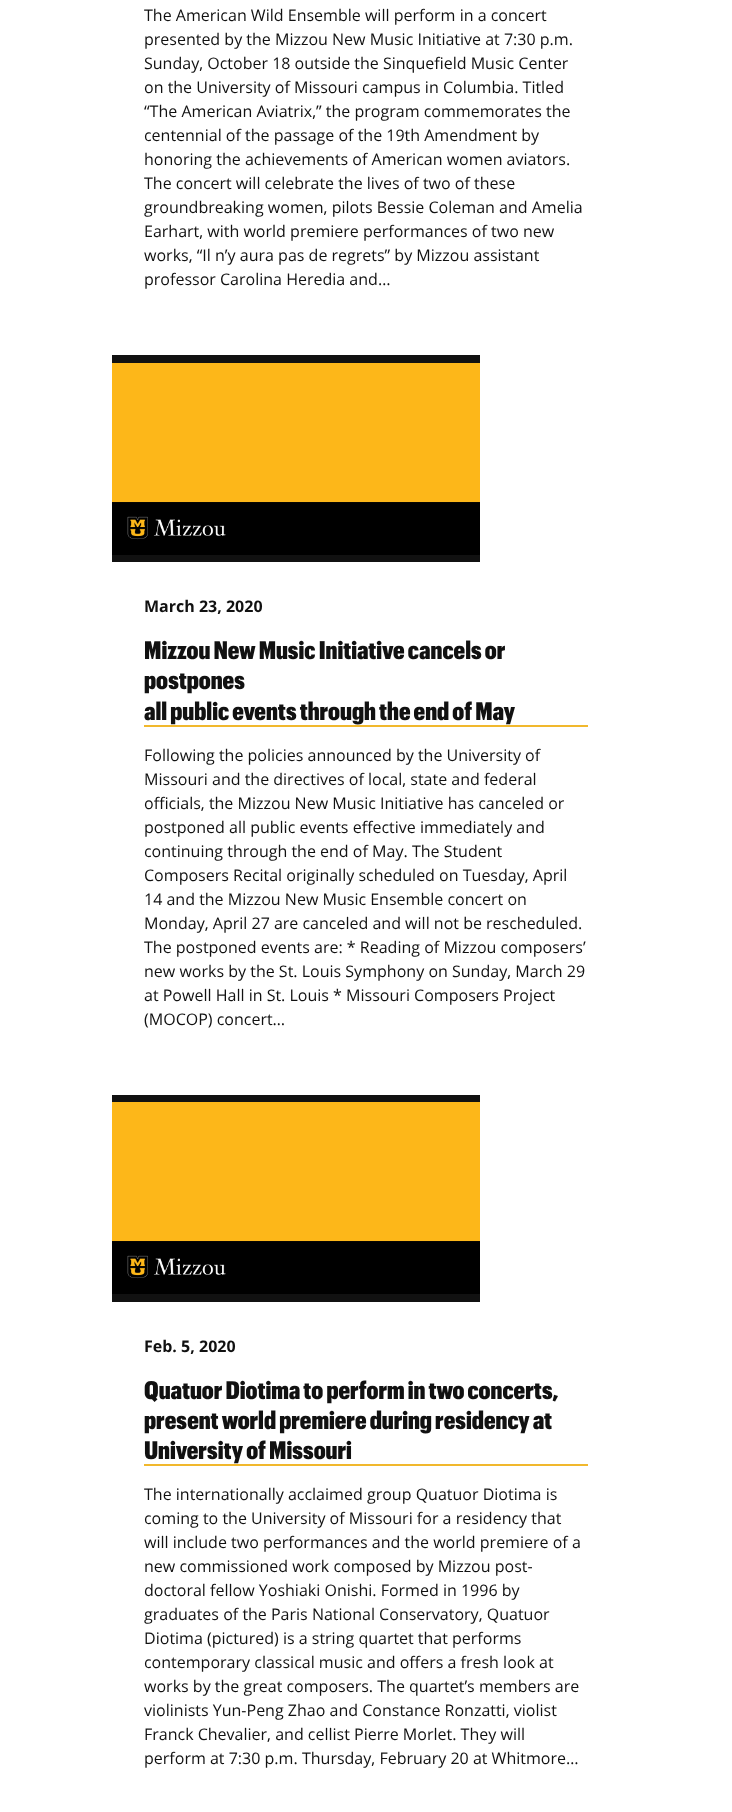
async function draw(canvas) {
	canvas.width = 732;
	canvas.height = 1812;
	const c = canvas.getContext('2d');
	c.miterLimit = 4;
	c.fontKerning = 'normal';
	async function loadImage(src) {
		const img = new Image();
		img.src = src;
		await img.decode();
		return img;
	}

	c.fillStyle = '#fff';
	c.fillRect(0, 0, 732, 1812);
	c.font = '16px Open Sans';
	c.fillStyle = '#111';
	for (const [text, x, y] of [
		['The American Wild Ensemble will perform in a concert', 144, 21],
		['presented by the Mizzou New Music Initiative at 7:30 p.m.', 144, 45],
		['Sunday, October 18 outside the Sinquefield Music Center', 144, 69],
		['on the University of Missouri campus in Columbia. Titled', 144, 93],
		['“The American Aviatrix,” the program commemorates the', 144, 117],
		['centennial of the passage of the 19th Amendment by', 144, 141],
		['honoring the achievements of American women aviators.', 144, 165],
		['The concert will celebrate the lives of two of these', 144, 189],
		['groundbreaking women, pilots Bessie Coleman and Amelia', 144, 213],
		['Earhart, with world premiere performances of two new', 144, 237],
		['works, “Il n’y aura pas de regrets” by Mizzou assistant', 144, 261],
		['professor Carolina Heredia and…', 144, 285],
	]) {
		c.fillText(text, x, y);
	}
	c.fillRect(112, 355, 368, 207);
	c.drawImage(await loadImage('img1.png'), 112, 363, 368, 192);
	c.font = 'bold 16px Open Sans';
	c.fillText('March 23, 2020', 144, 612);
	c.fillStyle = '#f1b82d';
	c.fillRect(144, 725, 444, 2);
	c.font = '800 25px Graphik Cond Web';
	c.fillStyle = '#111';
	for (const [text, x, y] of [
		['Mizzou New Music Initiative cancels or', 144, 659],
		['postpones', 144, 689],
		['all public events through the end of May', 144, 720],
	]) {
		c.fillText(text, x, y);
	}
	c.font = '16px Open Sans';
	for (const [text, x, y] of [
		['Following the policies announced by the University of', 144, 761],
		['Missouri and the directives of local, state and federal', 144, 785],
		['officials, the Mizzou New Music Initiative has canceled or', 144, 809],
		['postponed all public events effective immediately and', 144, 833],
		['continuing through the end of May. The Student', 144, 857],
		['Composers Recital originally scheduled on Tuesday, April', 144, 881],
		['14 and the Mizzou New Music Ensemble concert on', 144, 905],
		['Monday, April 27 are canceled and will not be rescheduled.', 144, 929],
		['The postponed events are: * Reading of Mizzou composers’', 144, 953],
		['new works by the St. Louis Symphony on Sunday, March 29', 144, 977],
		['at Powell Hall in St. Louis * Missouri Composers Project', 144, 1001],
		['(MOCOP) concert…', 144, 1025],
	]) {
		c.fillText(text, x, y);
	}
	c.fillRect(112, 1095, 368, 207);
	c.drawImage(await loadImage('img1.png'), 112, 1102, 368, 192);
	c.font = 'bold 16px Open Sans';
	c.fillText('Feb. 5, 2020', 144, 1352);
	c.fillStyle = '#f1b82d';
	c.fillRect(144, 1464, 444, 2);
	c.font = '800 25px Graphik Cond Web';
	c.fillStyle = '#111';
	for (const [text, x, y] of [
		['Quatuor Diotima to perform in two concerts,', 144, 1399],
		['present world premiere during residency at', 144, 1429],
		['University of Missouri', 144, 1459],
	]) {
		c.fillText(text, x, y);
	}
	c.font = '16px Open Sans';
	for (const [text, x, y] of [
		['The internationally acclaimed group Quatuor Diotima is', 144, 1500],
		['coming to the University of Missouri for a residency that', 144, 1524],
		['will include two performances and the world premiere of a', 144, 1548],
		['new commissioned work composed by Mizzou post-', 144, 1572],
		['doctoral fellow Yoshiaki Onishi. Formed in 1996 by', 144, 1596],
		['graduates of the Paris National Conservatory, Quatuor', 144, 1620],
		['Diotima (pictured) is a string quartet that performs', 144, 1644],
		['contemporary classical music and offers a fresh look at', 144, 1668],
		['works by the great composers. The quartet’s members are', 144, 1692],
		['violinists Yun-Peng Zhao and Constance Ronzatti, violist', 144, 1716],
		['Franck Chevalier, and cellist Pierre Morlet. They will', 144, 1740],
		['perform at 7:30 p.m. Thursday, February 20 at Whitmore…', 144, 1764],
	]) {
		c.fillText(text, x, y);
	}
}

draw(document.querySelector('canvas'));
